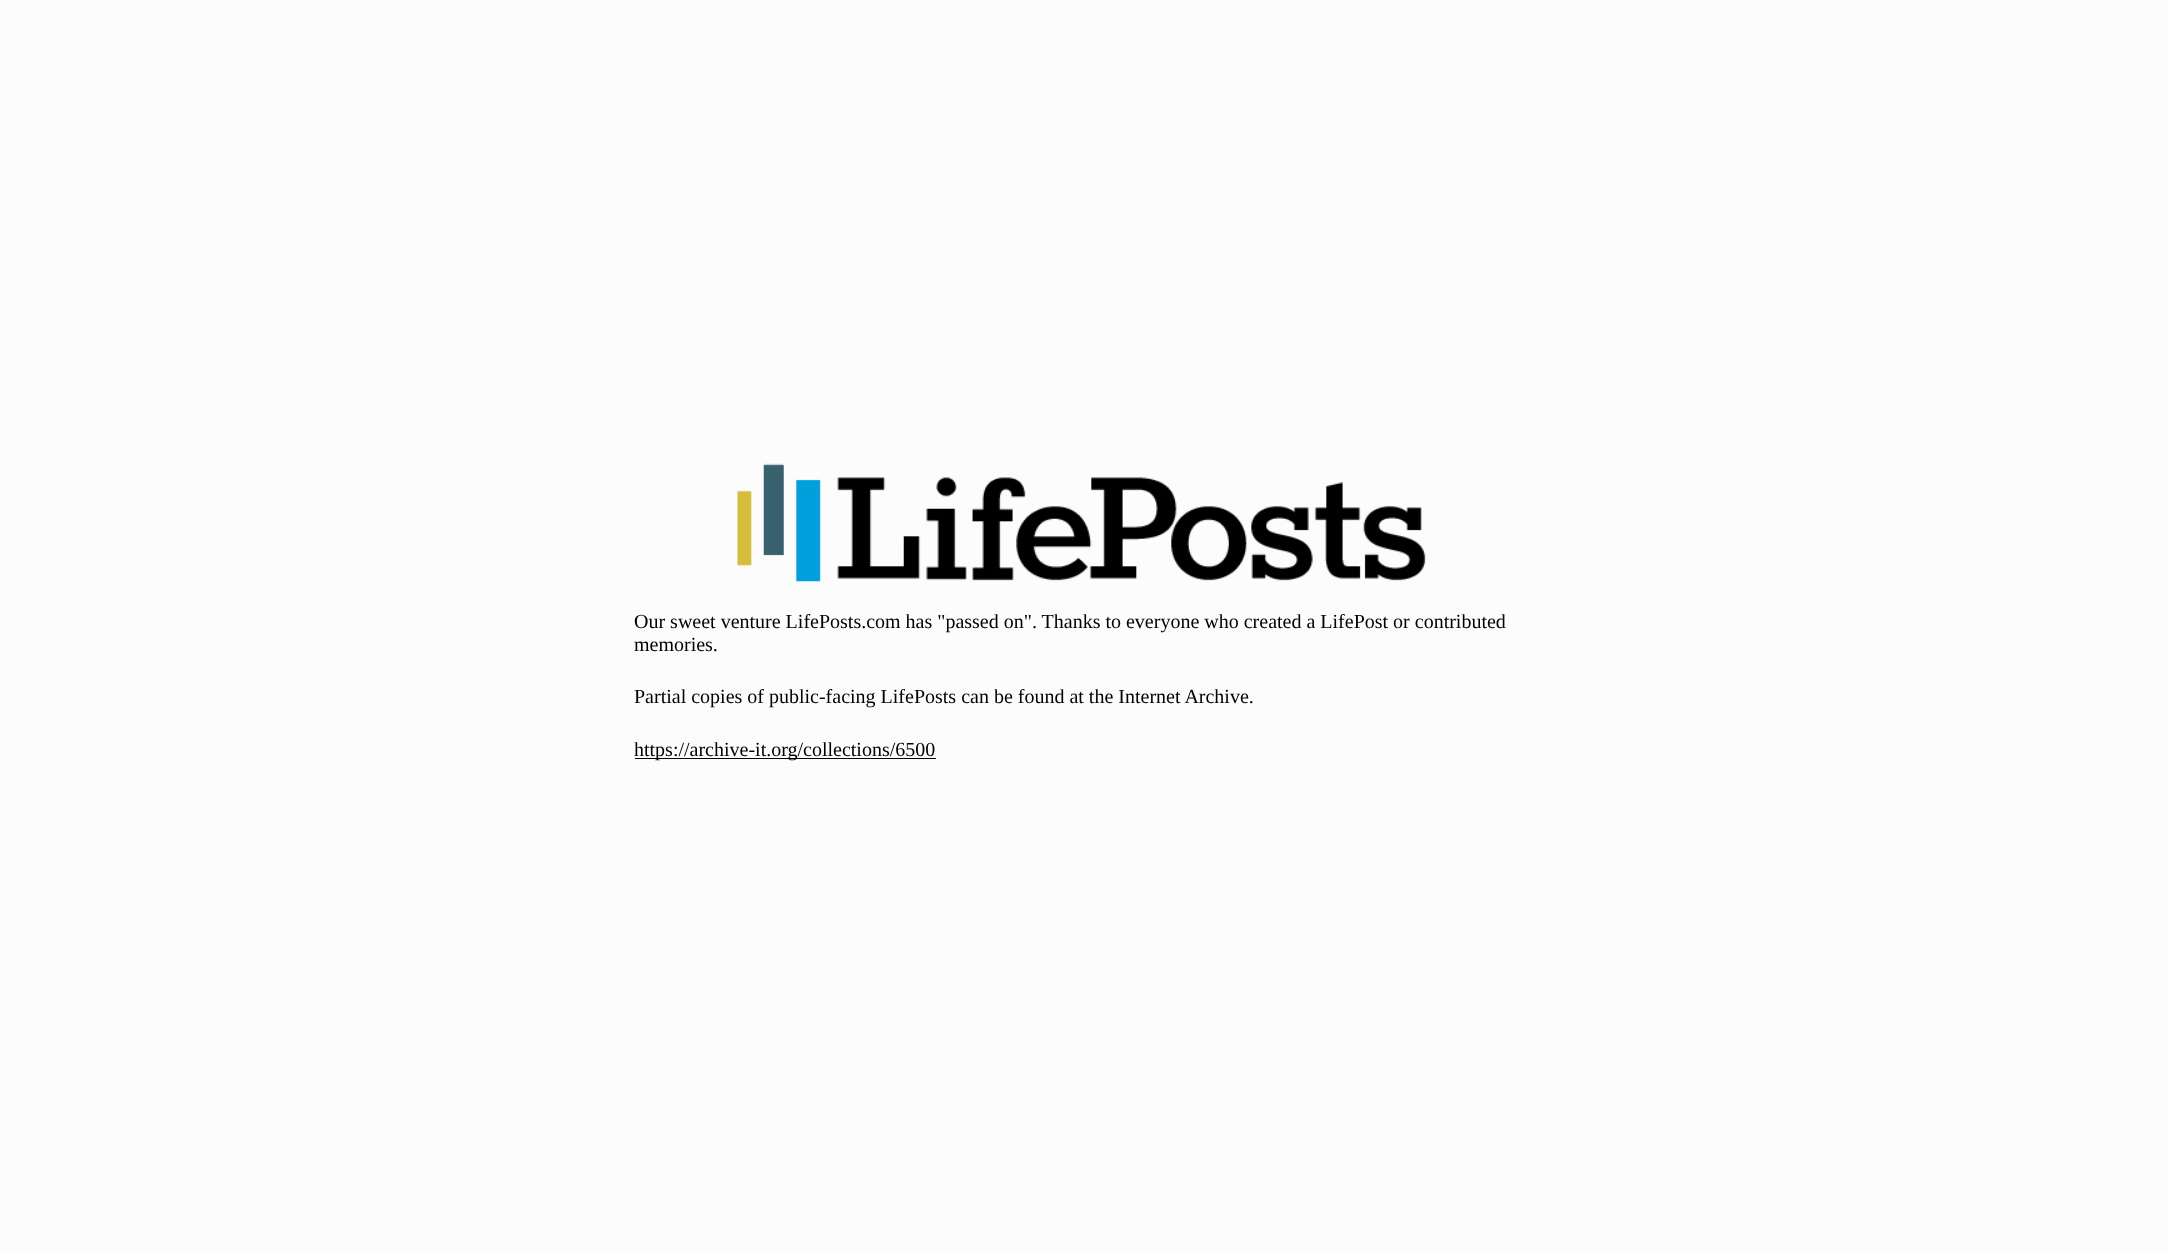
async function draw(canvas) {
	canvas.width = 2168;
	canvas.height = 1253;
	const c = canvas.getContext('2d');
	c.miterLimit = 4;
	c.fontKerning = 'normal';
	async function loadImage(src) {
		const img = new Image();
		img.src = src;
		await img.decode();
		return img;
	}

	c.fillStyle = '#fcfcfc';
	c.fillRect(0, 0, 2168, 1253);
	c.drawImage(await loadImage('img1.png'), 737, 463, 689, 119);
	c.font = '20px Liberation Serif';
	c.fillStyle = '#000';
	for (const [text, x, y] of [
		['Our sweet venture LifePosts.com has "passed on". Thanks to everyone who created a LifePost or contributed', 634, 628],
		['memories.', 634, 651],
		['Partial copies of public-facing LifePosts can be found at the Internet Archive.', 634, 703],
	]) {
		c.fillText(text, x, y);
	}
	c.fillRect(635, 758, 301, 1);
	c.fillText('https://archive-it.org/collections/6500', 634, 756);
}

draw(document.querySelector('canvas'));
